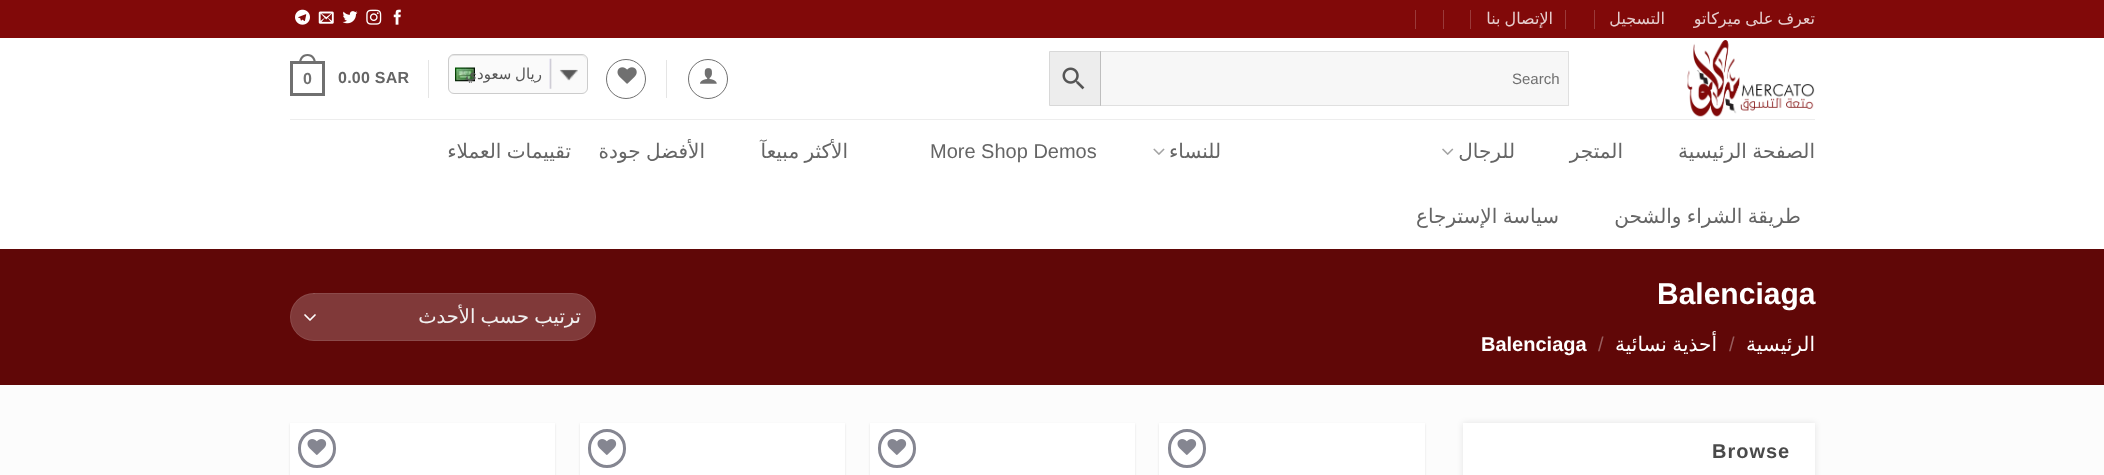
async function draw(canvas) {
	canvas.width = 2104;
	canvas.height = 475;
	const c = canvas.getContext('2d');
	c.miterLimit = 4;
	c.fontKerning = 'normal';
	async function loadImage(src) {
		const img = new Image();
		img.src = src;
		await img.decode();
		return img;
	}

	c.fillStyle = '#fcfcfc';
	c.fillRect(0, 0, 2104, 475);
	c.fillStyle = '#810909';
	c.fillRect(0, 0, 2104, 38);
	c.wordSpacing = '-1px';
	c.direction = 'rtl';
	c.font = '16px DejaVu Sans';
	c.fillStyle = '#e6cece';
	c.fillText('تعرف على ميركاتو', 1815, 24);
	c.wordSpacing = '0px';
	c.fillText('التسجيل', 1665, 24);
	c.fillStyle = '#9a3a3a';
	c.fillRect(1594, 10, 1, 19);
	c.fillRect(1565, 10, 1, 19);
	c.wordSpacing = '-1px';
	c.fillStyle = '#e6cece';
	c.fillText('الإتصال بنا', 1553, 24);
	for (const [x, y, w, h, color] of [
		[1470, 10, 1, 19, '#9a3a3a'],
		[1443, 10, 1, 19, '#9a3a3a'],
		[1415, 10, 1, 19, '#9a3a3a'],
	]) {
		c.fillStyle = color;
		c.fillRect(x, y, w, h);
	}
	c.drawImage(await loadImage('img1.png'), 393, 9, 8, 16);
	c.drawImage(await loadImage('img2.png'), 366, 9, 16, 16);
	c.drawImage(await loadImage('img3.png'), 342, 11, 16, 13);
	c.drawImage(await loadImage('img4.png'), 318, 11, 16, 13);
	c.drawImage(await loadImage('img5.png'), 295, 9, 15, 16);
	c.fillStyle = '#ffffffe6';
	c.fillRect(0, 38, 2104, 211);
	c.drawImage(await loadImage('img6.png'), 1687, 40, 128, 77);
	c.fillStyle = '#ededed';
	c.beginPath();
	c.rect(1049.5, 51.5, 51, 54);
	c.fill();
	c.strokeStyle = '#d8d8d8';
	c.stroke();
	c.fillStyle = '#00000008';
	c.fillRect(1100, 51, 469, 55);
	c.strokeStyle = '#00000017';
	c.strokeRect(1100.5, 51.5, 468, 54);
	c.wordSpacing = '0px';
	c.direction = 'ltr';
	c.font = '15px Liberation Sans';
	c.fillStyle = '#707070';
	c.fillText('Search', 1512, 84);
	c.drawImage(await loadImage('img7.png'), 1062, 67, 23, 23);
	c.beginPath();
	c.arc(708, 79, 19.5, 0, 2 * Math.PI);
	c.strokeStyle = '#707070';
	c.stroke();
	c.drawImage(await loadImage('img8.png'), 700, 68, 17, 16);
	c.fillStyle = '#e5e5e5';
	c.fillRect(666, 60, 1, 38);
	c.beginPath();
	c.arc(626, 79, 19.5, 0, 2 * Math.PI);
	c.stroke();
	c.drawImage(await loadImage('img9.png'), 617, 67, 20, 17);
	c.fillStyle = '#fafafa';
	c.beginPath();
	c.roundRect(448, 54, 140, 40, 6);
	c.fill();
	c.fillStyle = '#e7e7e7';
	c.beginPath();
	c.moveTo(454, 56);
	c.lineTo(581, 56);
	c.bezierCurveTo(584, 56, 586, 58, 586, 61);
	c.lineTo(586, 60);
	c.bezierCurveTo(586, 57, 584, 55, 581, 55);
	c.lineTo(454, 55);
	c.bezierCurveTo(451, 55, 449, 57, 449, 60);
	c.lineTo(449, 61);
	c.bezierCurveTo(449, 58, 451, 56, 454, 56);
	c.closePath();
	c.fill();
	c.beginPath();
	c.roundRect(448.5, 54.5, 139, 39, 5.5);
	c.strokeStyle = '#ccc';
	c.stroke();
	c.drawImage(await loadImage('img10.png'), 549, 58, 29, 31);
	c.drawImage(await loadImage('img11.png'), 455, 67, 20, 15);
	c.wordSpacing = '-1px';
	c.direction = 'rtl';
	c.font = '15px DejaVu Sans';
	c.fillStyle = '#555';
	c.fillText('ريال سعودي', 542, 79);
	c.fillStyle = '#e5e5e5';
	c.fillRect(428, 60, 1, 38);
	c.letterSpacing = '0.25px';
	c.wordSpacing = '0px';
	c.direction = 'ltr';
	c.font = 'bold 16px Liberation Sans';
	c.fillStyle = '#656565';
	c.fillText('0.00 SAR', 338, 83);
	c.strokeStyle = '#707070';
	c.lineWidth = 3;
	c.strokeRect(291.5, 62.5, 32, 32);
	c.fillStyle = '#707070';
	c.beginPath();
	c.moveTo(307.5, 54);
	c.bezierCurveTo(313.5, 54, 316, 58.5, 316, 64);
	c.lineTo(299, 64);
	c.bezierCurveTo(299, 58.5, 301.5, 54, 307.5, 54);
	c.closePath();
	c.moveTo(307.5, 56);
	c.bezierCurveTo(312, 56, 314, 60, 314, 64);
	c.lineTo(301, 64);
	c.bezierCurveTo(301, 60, 303, 56, 307.5, 56);
	c.closePath();
	c.fill('evenodd');
	c.fillText('0', 303, 84);
	c.fillStyle = '#ededed';
	c.fillRect(290, 119, 1525, 1);
	c.letterSpacing = '0px';
	c.wordSpacing = '-1px';
	c.direction = 'rtl';
	c.font = '20px DejaVu Sans';
	c.fillStyle = '#656565';
	c.fillText('الصفحة الرئيسية', 1815, 158);
	c.wordSpacing = '0px';
	c.fillText('المتجر', 1623, 158);
	c.fillText('للرجال', 1515, 158);
	c.drawImage(await loadImage('img12.png'), 1442, 148, 12, 7);
	c.fillText('للنساء', 1221, 158);
	c.drawImage(await loadImage('img13.png'), 1153, 148, 12, 7);
	c.direction = 'ltr';
	c.font = '20px Liberation Sans';
	c.fillText('More Shop Demos', 930, 158);
	c.wordSpacing = '-1px';
	c.direction = 'rtl';
	c.font = '20px DejaVu Sans';
	for (const [text, x, y] of [
		['الأكثر مبيعآ', 848, 158],
		['الأفضل جودة', 705, 158],
		['تقييمات العملاء', 571, 158],
		['طريقة الشراء والشحن', 1801, 223],
		['سياسة الإسترجاع', 1559, 223],
	]) {
		c.fillText(text, x, y);
	}
	c.fillStyle = '#600707';
	c.fillRect(0, 249, 2104, 136);
	c.wordSpacing = '0px';
	c.direction = 'ltr';
	c.font = 'bold 30px Liberation Sans';
	c.fillStyle = '#fff';
	c.fillText('Balenciaga', 1657, 304);
	c.direction = 'rtl';
	c.font = '20px DejaVu Sans';
	c.fillText('الرئيسية', 1815, 351);
	c.direction = 'ltr';
	c.font = '20px Liberation Sans';
	c.fillStyle = '#985e5e';
	c.fillText('/', 1729, 351);
	c.wordSpacing = '-1px';
	c.direction = 'rtl';
	c.font = '20px DejaVu Sans';
	c.fillStyle = '#fff';
	c.fillText('أحذية نسائية', 1717, 351);
	c.wordSpacing = '0px';
	c.direction = 'ltr';
	c.font = '20px Liberation Sans';
	c.fillStyle = '#985e5e';
	c.fillText('/', 1598, 351);
	c.font = 'bold 20px Liberation Sans';
	c.fillStyle = '#fff';
	c.fillText('Balenciaga', 1481, 351);
	c.fillStyle = '#803939';
	c.beginPath();
	c.roundRect(290, 293, 306, 48, 24);
	c.fill();
	c.beginPath();
	c.moveTo(305, 315);
	c.lineTo(310, 320);
	c.lineTo(315, 315);
	c.strokeStyle = '#fff';
	c.lineWidth = 1.7;
	c.lineCap = 'round';
	c.lineJoin = 'round';
	c.stroke();
	c.beginPath();
	c.roundRect(290.5, 293.5, 305, 47, 23.5);
	c.strokeStyle = '#ffffff17';
	c.lineWidth = 1;
	c.lineJoin = 'miter';
	c.stroke();
	c.wordSpacing = '-1px';
	c.direction = 'rtl';
	c.font = '19.5px DejaVu Sans';
	c.fillStyle = '#f1f1f1';
	c.fillText('ترتيب حسب الأحدث', 581, 323);
	c.fillStyle = '#0000001a';
	c.filter = 'blur(3px)';
	c.beginPath();
	c.rect(1463, 423, 352, 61);
	c.fill();
	c.filter = 'none';
	c.fillStyle = '#fff';
	c.fillRect(1463, 423, 352, 52);
	c.letterSpacing = '1px';
	c.wordSpacing = '0px';
	c.direction = 'ltr';
	c.font = 'bold 20px Liberation Sans';
	c.fillStyle = '#4a4a4a';
	c.fillText('Browse', 1712, 458);
	c.fillStyle = '#0000001c';
	c.filter = 'blur(1px)';
	c.beginPath();
	c.rect(1159, 424, 266, 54);
	c.fill();
	c.filter = 'none';
	c.fillStyle = '#fff';
	c.fillRect(1159, 423, 266, 52);
	c.beginPath();
	c.roundRect(1169.5, 430.5, 35, 36, 17.5);
	c.strokeStyle = '#858691';
	c.lineWidth = 3;
	c.stroke();
	c.drawImage(await loadImage('img14.png'), 1177, 439, 20, 16);
	c.fillStyle = '#0000001c';
	c.filter = 'blur(1px)';
	c.beginPath();
	c.rect(870, 424, 265, 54);
	c.fill();
	c.filter = 'none';
	c.fillStyle = '#fff';
	c.fillRect(870, 423, 265, 52);
	c.beginPath();
	c.roundRect(879.5, 430.5, 35, 36, 17.5);
	c.stroke();
	c.drawImage(await loadImage('img14.png'), 887, 439, 20, 16);
	c.fillStyle = '#0000001c';
	c.filter = 'blur(1px)';
	c.beginPath();
	c.rect(580, 424, 265, 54);
	c.fill();
	c.filter = 'none';
	c.fillStyle = '#fff';
	c.fillRect(580, 423, 265, 52);
	c.beginPath();
	c.roundRect(589.5, 430.5, 35, 36, 17.5);
	c.stroke();
	c.drawImage(await loadImage('img14.png'), 597, 439, 20, 16);
	c.fillStyle = '#0000001c';
	c.filter = 'blur(1px)';
	c.beginPath();
	c.rect(290, 424, 265, 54);
	c.fill();
	c.filter = 'none';
	c.fillStyle = '#fff';
	c.fillRect(290, 423, 265, 52);
	c.beginPath();
	c.roundRect(299.5, 430.5, 35, 36, 17.5);
	c.stroke();
	c.drawImage(await loadImage('img14.png'), 307, 439, 20, 16);
}

draw(document.querySelector('canvas'));
